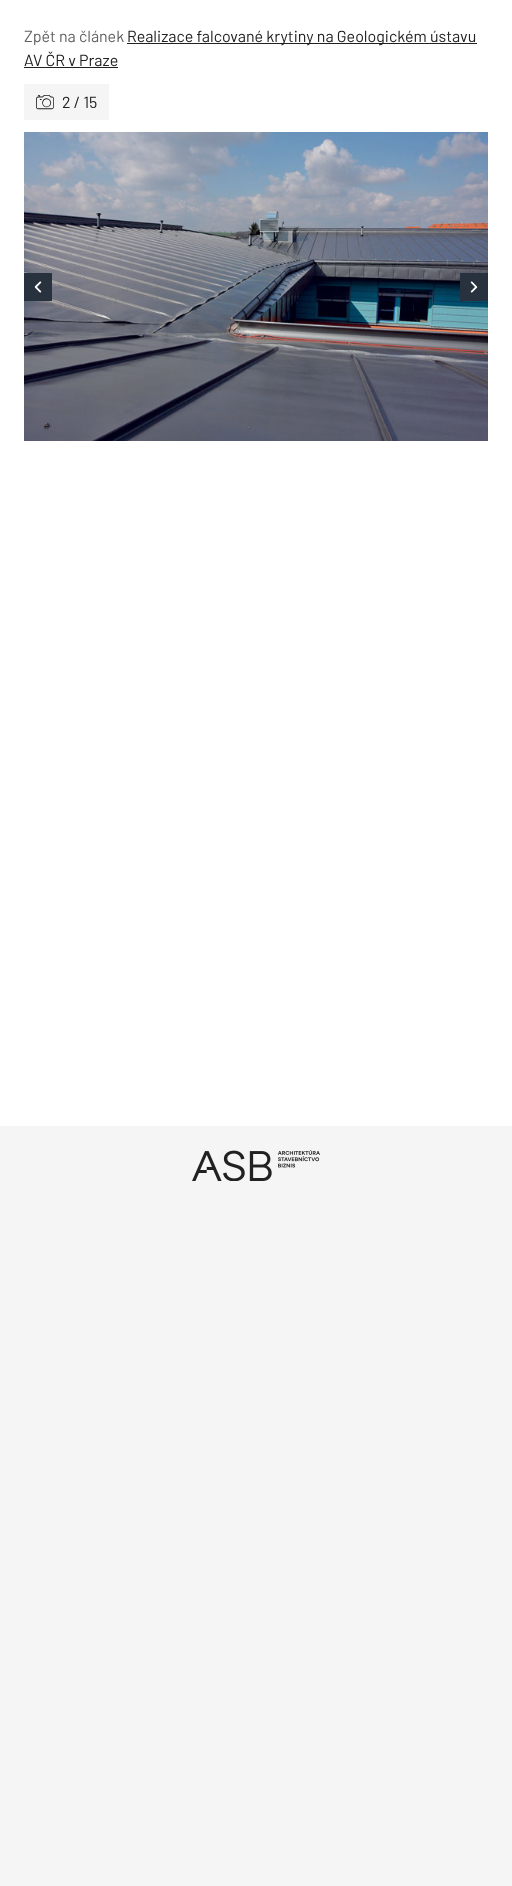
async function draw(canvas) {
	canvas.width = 512;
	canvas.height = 1886;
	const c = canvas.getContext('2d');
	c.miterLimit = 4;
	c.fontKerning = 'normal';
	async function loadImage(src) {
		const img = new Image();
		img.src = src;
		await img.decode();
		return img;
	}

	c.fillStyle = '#fff';
	c.fillRect(0, 0, 512, 1886);
	c.font = '16px Barlow';
	c.fillStyle = '#616161';
	c.fillText('Zpět na článek', 24, 42);
	c.fillStyle = '#212121';
	c.fillRect(127, 43, 350, 1);
	c.fillText('Realizace falcované krytiny na Geologickém ústavu', 127, 42);
	c.fillText('AV ČR v Praze', 24, 66);
	c.fillRect(24, 67, 94, 1);
	c.fillStyle = '#f5f5f5';
	c.fillRect(24, 84, 85, 36);
	c.drawImage(await loadImage('img1.png'), 36, 95, 18, 15);
	c.fillStyle = '#212121';
	c.fillText('2 / 15', 62, 108);
	c.drawImage(await loadImage('img2.png'), 24, 132, 464, 309);
	c.fillStyle = '#28313e';
	c.fillRect(24, 273, 28, 28);
	c.drawImage(await loadImage('img3.png'), 34, 281, 8, 12);
	c.fillRect(460, 273, 28, 28);
	c.drawImage(await loadImage('img4.png'), 470, 281, 8, 12);
	c.fillStyle = '#f5f5f5';
	c.fillRect(0, 1126, 512, 760);
	c.drawImage(await loadImage('img5.png'), 192, 1150, 128, 31);
}

draw(document.querySelector('canvas'));
